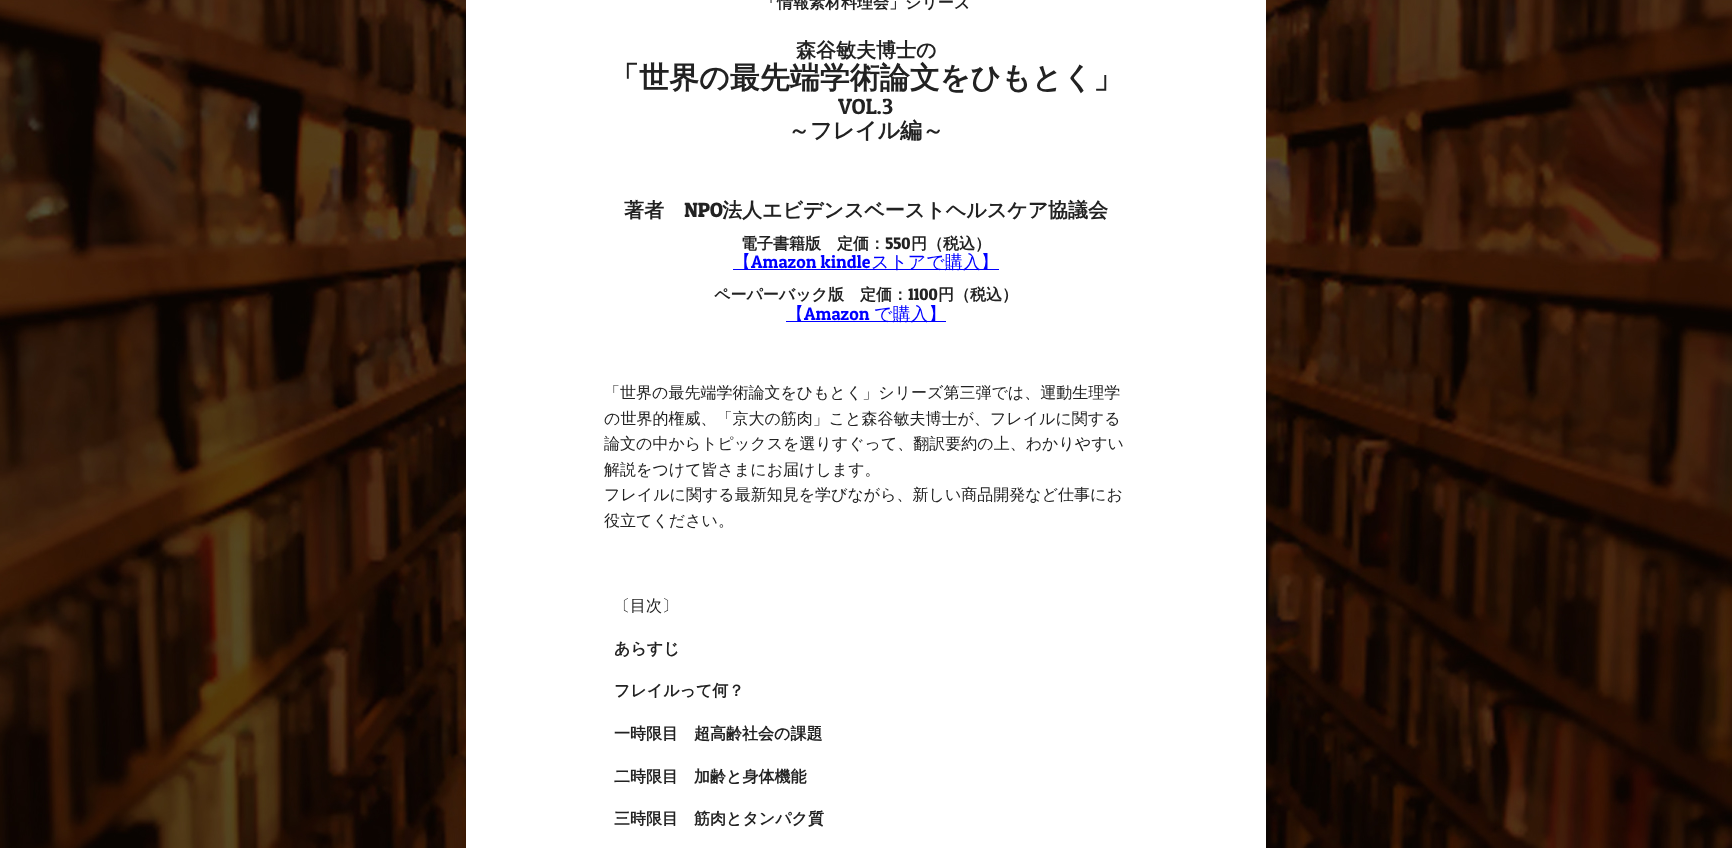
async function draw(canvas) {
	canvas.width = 1732;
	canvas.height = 848;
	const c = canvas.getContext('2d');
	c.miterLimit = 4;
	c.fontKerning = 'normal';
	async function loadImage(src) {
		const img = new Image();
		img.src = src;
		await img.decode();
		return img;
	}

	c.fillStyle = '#fff';
	c.fillRect(0, 0, 1732, 848);
	c.drawImage(await loadImage('img1.png'), 0, 0, 1732, 848);
	c.fillRect(466, 0, 800, 848);
	c.font = 'bold 16px WenQuanYi Zen Hei';
	c.fillStyle = '#222';
	c.fillText('「情報素材料理会」シリーズ', 761, 8);
	c.font = 'bold 20px WenQuanYi Zen Hei';
	c.fillText('森谷敏夫博士の', 796, 57);
	c.font = 'bold 30px WenQuanYi Zen Hei';
	c.fillText('「世界の最先端学術論文をひもとく」', 609, 88);
	c.font = '22px Patua One';
	c.fillText('VOL.3', 838, 114);
	c.font = 'bold 22px WenQuanYi Zen Hei';
	c.fillText('～フレイル編～', 788, 138);
	c.font = 'bold 20px WenQuanYi Zen Hei';
	c.fillText('著者', 624, 217);
	c.font = 'bold 20px Patua One';
	c.fillText('NPO', 684, 217);
	c.font = 'bold 20px WenQuanYi Zen Hei';
	c.fillText('法人エビデンスベーストヘルスケア協議会', 722, 217);
	c.font = 'bold 16px WenQuanYi Zen Hei';
	c.fillText('電子書籍版　定価：', 741, 249);
	c.font = 'bold 16px Patua One';
	c.fillText('550', 885, 249);
	c.font = 'bold 16px WenQuanYi Zen Hei';
	c.fillText('円（税込）', 911, 249);
	c.fillStyle = '#00f';
	c.fillRect(733, 269, 266, 1);
	c.font = '500 18px WenQuanYi Zen Hei';
	c.fillText('【', 733, 268);
	c.font = '18px Patua One';
	c.fillText('Amazon kindle', 751, 268);
	c.font = '500 18px WenQuanYi Zen Hei';
	c.fillText('ストアで購入】', 871, 268);
	c.font = 'bold 16px WenQuanYi Zen Hei';
	c.fillStyle = '#222';
	c.fillText('ペーパーバック版　定価：', 714, 300);
	c.font = 'bold 16px Patua One';
	c.fillText('1100', 908, 300);
	c.font = 'bold 16px WenQuanYi Zen Hei';
	c.fillText('円（税込）', 938, 300);
	c.fillStyle = '#00f';
	c.fillRect(786, 321, 160, 1);
	c.font = '500 18px WenQuanYi Zen Hei';
	c.fillText('【', 786, 320);
	c.font = '18px Patua One';
	c.fillText('Amazon', 804, 320);
	c.font = '500 18px WenQuanYi Zen Hei';
	c.fillText('で購入】', 874, 320);
	c.font = '500 16px WenQuanYi Zen Hei';
	c.fillStyle = '#222';
	for (const [text, x, y] of [
		['「世界の最先端学術論文をひもとく」シリーズ第三弾では、運動生理学', 604, 398],
		['の世界的権威、「京大の筋肉」こと森谷敏夫博士が、フレイルに関する', 604, 424],
		['論文の中からトピックスを選りすぐって、翻訳要約の上、わかりやすい', 604, 449],
		['解説をつけて皆さまにお届けします。', 604, 475],
		['フレイルに関する最新知見を学びながら、新しい商品開発など仕事にお', 604, 500],
		['役立てください。', 604, 526],
		['〔目次〕', 614, 611],
	]) {
		c.fillText(text, x, y);
	}
	c.font = 'bold 16px WenQuanYi Zen Hei';
	for (const [text, x, y] of [
		['あらすじ', 614, 654],
		['フレイルって何？', 614, 696],
		['一時限目　超高齢社会の課題', 614, 739],
		['二時限目　加齢と身体機能', 614, 782],
		['三時限目　筋肉とタンパク質', 614, 824],
	]) {
		c.fillText(text, x, y);
	}
}

draw(document.querySelector('canvas'));
